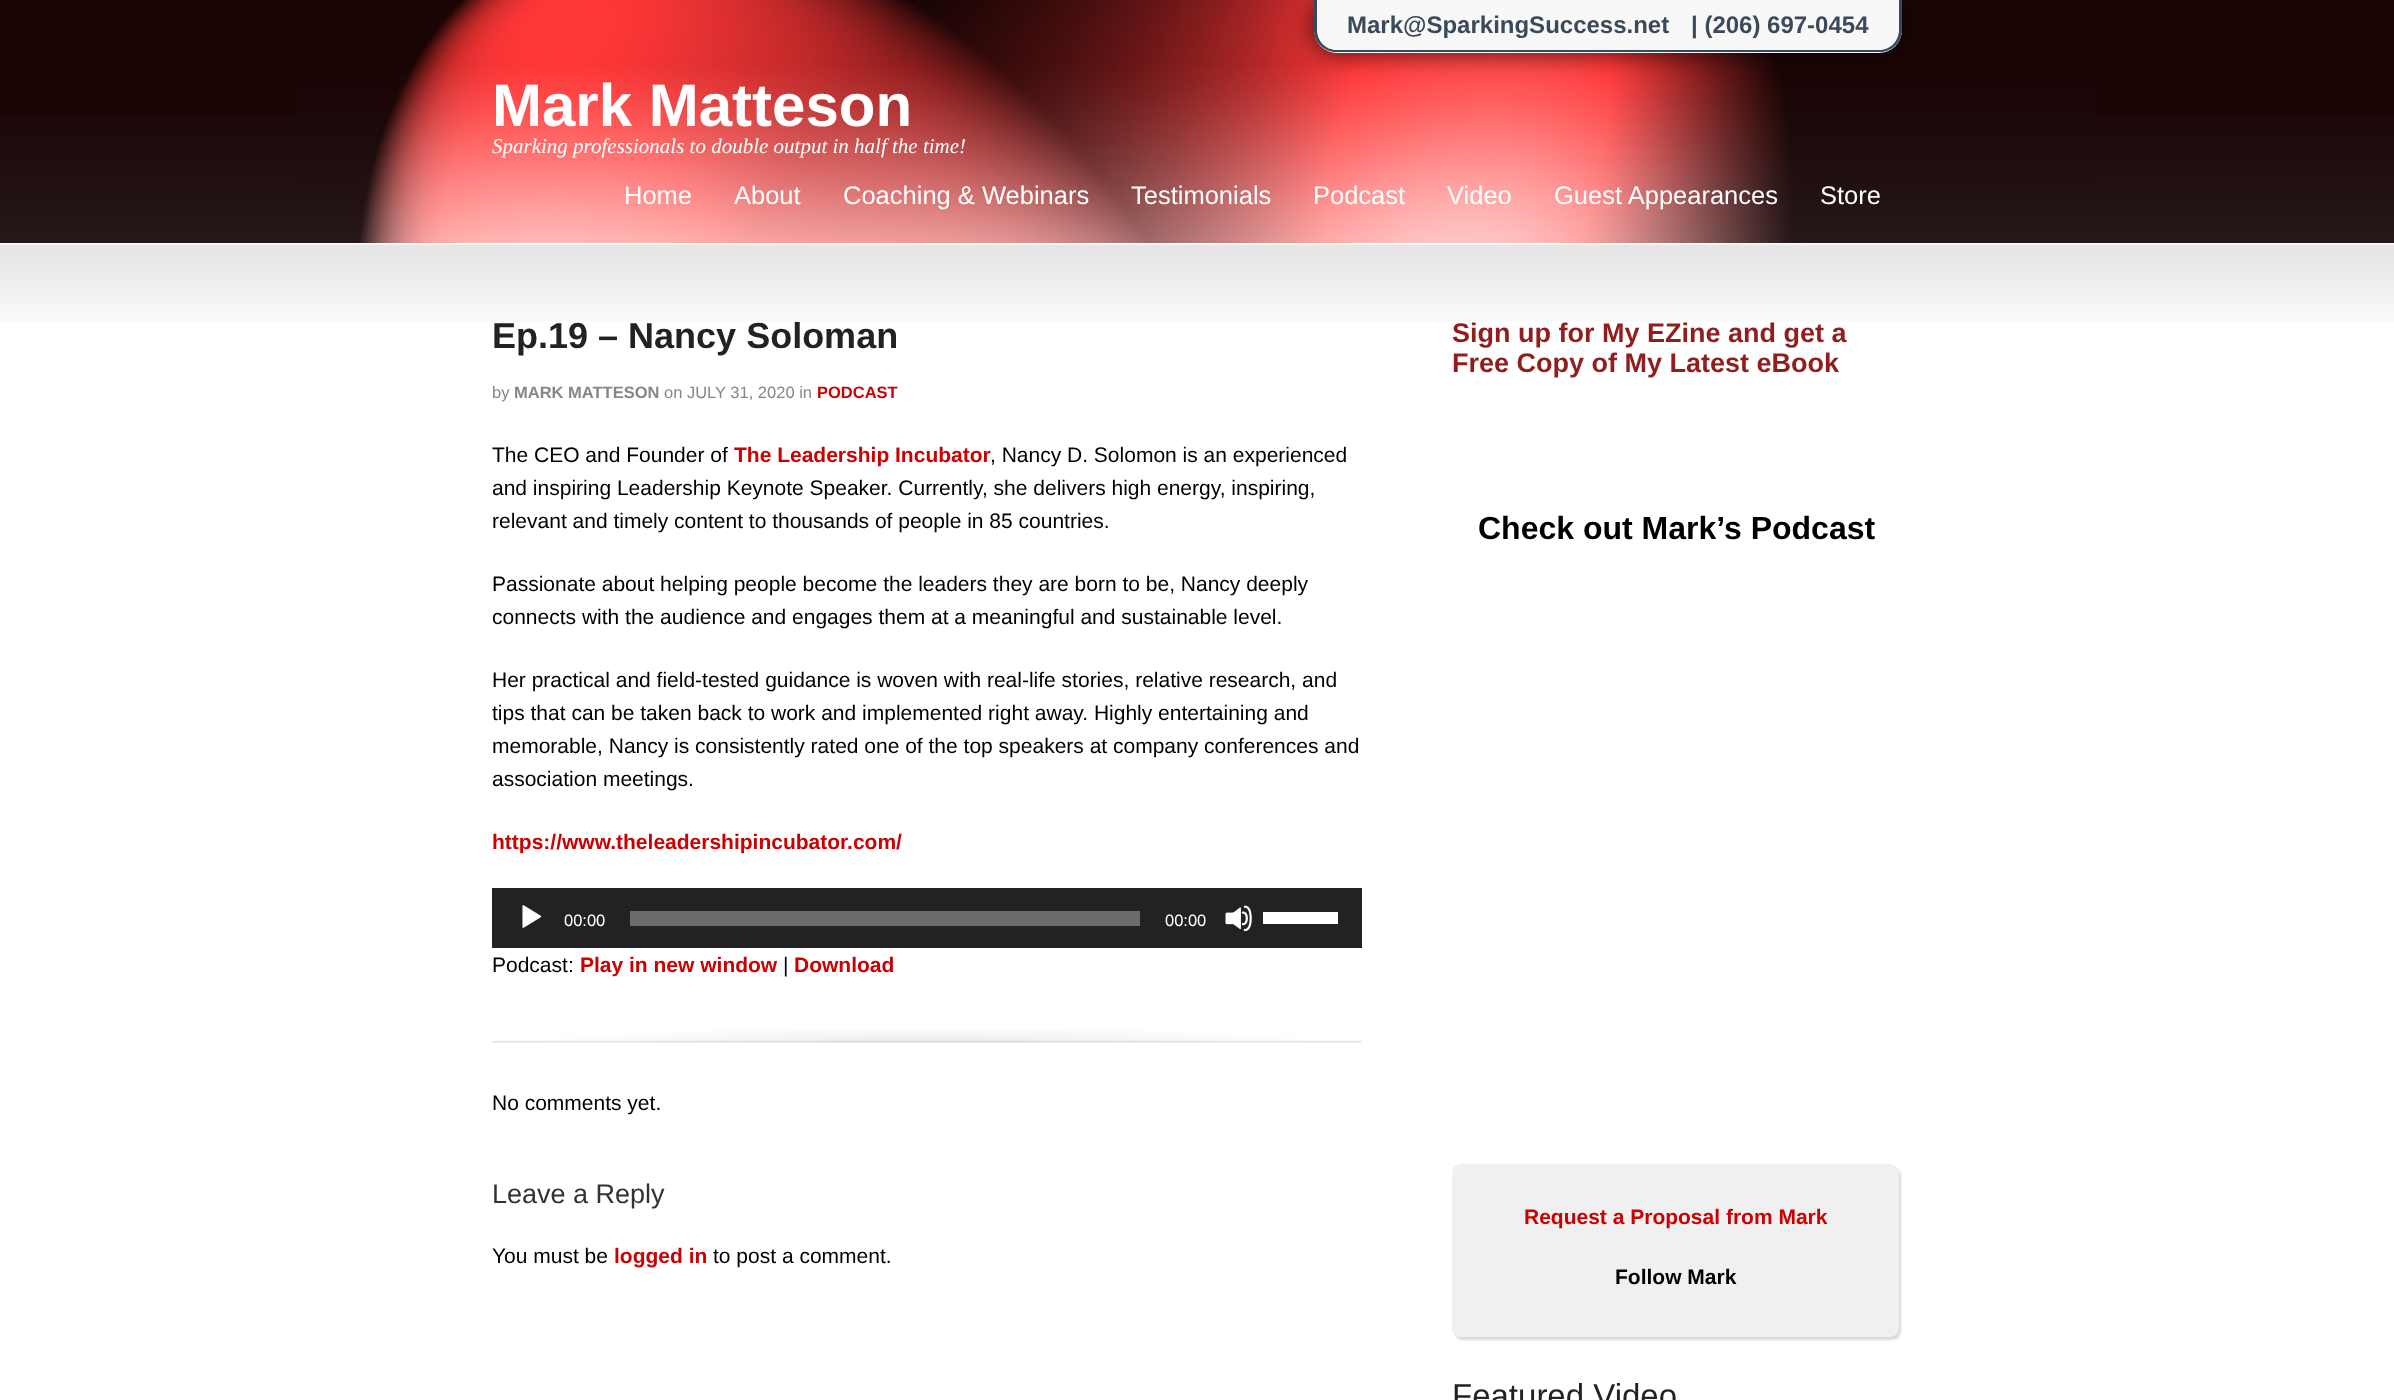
async function draw(canvas) {
	canvas.width = 2394;
	canvas.height = 1400;
	const c = canvas.getContext('2d');
	c.miterLimit = 4;
	c.fontKerning = 'normal';
	async function loadImage(src) {
		const img = new Image();
		img.src = src;
		await img.decode();
		return img;
	}

	c.fillStyle = '#fff';
	c.fillRect(0, 0, 2394, 1400);
	c.fillStyle = '#1a0504';
	c.fillRect(0, 0, 2394, 115);
	c.drawImage(await loadImage('img1.png'), 0, 115, 2394, 128);
	c.drawImage(await loadImage('img2.png'), 297, 0, 1800, 243);
	c.fillStyle = '#000000bf';
	c.filter = 'blur(12px)';
	c.beginPath();
	c.roundRect(1314, 0, 588, 53, 23);
	c.fill();
	c.filter = 'none';
	c.fillStyle = '#f8f8f8';
	c.beginPath();
	c.roundRect(1314, 0, 588, 53, [0, 0, 23, 23]);
	c.fill();
	c.fillStyle = '#374960';
	c.beginPath();
	c.moveTo(1314, 0);
	c.lineTo(1902, 0);
	c.lineTo(1902, 30);
	c.bezierCurveTo(1902, 42, 1892, 52, 1880, 52);
	c.lineTo(1336, 52);
	c.bezierCurveTo(1324, 52, 1314, 42, 1314, 30);
	c.closePath();
	c.moveTo(1317, 0);
	c.lineTo(1899, 0);
	c.lineTo(1899, 30);
	c.bezierCurveTo(1899, 41, 1890, 50, 1880, 50);
	c.lineTo(1336, 50);
	c.bezierCurveTo(1326, 50, 1317, 41, 1317, 30);
	c.closePath();
	c.fill('evenodd');
	c.font = 'bold 24px Liberation Sans';
	c.fillStyle = '#3b4a5b';
	c.fillText('Mark@SparkingSuccess.net', 1347, 33);
	c.fillText('| (206) 697-0454', 1691, 33);
	c.font = 'bold 60px Liberation Sans';
	c.fillStyle = '#fff';
	c.fillText('Mark Matteson', 492, 126);
	c.font = 'italic 21px Liberation Serif';
	c.fillText('Sparking professionals to double output in half the time!', 492, 153);
	c.font = '25.5px Liberation Sans';
	for (const [text, x, y] of [
		['Home', 624, 204],
		['About', 734, 204],
		['Coaching & Webinars', 843, 204],
		['Testimonials', 1131, 204],
		['Podcast', 1313, 204],
		['Video', 1447, 204],
		['Guest Appearances', 1554, 204],
		['Store', 1820, 204],
	]) {
		c.fillText(text, x, y);
	}
	c.drawImage(await loadImage('img3.png'), 0, 244, 2394, 77);
	c.font = 'bold 36px Liberation Sans';
	c.fillStyle = '#222';
	c.fillText('Ep.19 – Nancy Soloman', 492, 348);
	c.font = '16.5px Liberation Sans';
	c.fillStyle = '#868686';
	c.fillText('by', 492, 398);
	c.font = 'bold 16.5px Liberation Sans';
	c.fillText('MARK MATTESON', 514, 398);
	c.font = '16.5px Liberation Sans';
	c.fillText('on JULY 31, 2020 in', 664, 398);
	c.font = 'bold 16.5px Liberation Sans';
	c.fillStyle = '#c00';
	c.fillText('PODCAST', 817, 398);
	c.font = '21px Liberation Sans';
	c.fillStyle = '#000';
	c.fillText('The CEO and Founder of', 492, 462);
	c.font = 'bold 21px Liberation Sans';
	c.fillStyle = '#c00';
	c.fillText('The Leadership Incubator', 734, 462);
	c.font = '21px Liberation Sans';
	c.fillStyle = '#000';
	for (const [text, x, y] of [
		[', Nancy D. Solomon is an experienced', 990, 462],
		['and inspiring Leadership Keynote Speaker. Currently, she delivers high energy, inspiring,', 492, 495],
		['relevant and timely content to thousands of people in 85 countries.', 492, 528],
		['Passionate about helping people become the leaders they are born to be, Nancy deeply', 492, 591],
		['connects with the audience and engages them at a meaningful and sustainable level.', 492, 624],
		['Her practical and field-tested guidance is woven with real-life stories, relative research, and', 492, 687],
		['tips that can be taken back to work and implemented right away. Highly entertaining and', 492, 720],
		['memorable, Nancy is consistently rated one of the top speakers at company conferences and', 492, 753],
		['association meetings.', 492, 786],
	]) {
		c.fillText(text, x, y);
	}
	c.font = 'bold 21px Liberation Sans';
	c.fillStyle = '#c00';
	c.fillText('https://www.theleadershipincubator.com/', 492, 849);
	c.fillStyle = '#222';
	c.fillRect(492, 888, 870, 60);
	c.drawImage(await loadImage('img4.png'), 522, 905, 20, 23);
	c.font = '16.5px Liberation Sans';
	c.fillStyle = '#fff';
	c.fillText('00:00', 564, 926);
	c.fillStyle = '#6b6b6b';
	c.fillRect(630, 911, 510, 15);
	c.fillStyle = '#fff';
	c.fillText('00:00', 1165, 926);
	c.drawImage(await loadImage('img5.png'), 1225, 905, 27, 27);
	c.fillRect(1263, 912, 75, 12);
	c.font = '21px Liberation Sans';
	c.fillStyle = '#000';
	c.fillText('Podcast:', 492, 972);
	c.font = 'bold 21px Liberation Sans';
	c.fillStyle = '#c00';
	c.fillText('Play in new window', 580, 972);
	c.font = '21px Liberation Sans';
	c.fillStyle = '#000';
	c.fillText('|', 783, 972);
	c.font = 'bold 21px Liberation Sans';
	c.fillStyle = '#c00';
	c.fillText('Download', 794, 972);
	c.drawImage(await loadImage('img6.png'), 492, 1030, 870, 13);
	c.font = '21px Liberation Sans';
	c.fillStyle = '#000';
	c.fillText('No comments yet.', 492, 1110);
	c.font = '27px Liberation Sans';
	c.fillStyle = '#333';
	c.fillText('Leave a Reply', 492, 1203);
	c.font = '21px Liberation Sans';
	c.fillStyle = '#000';
	c.fillText('You must be', 492, 1263);
	c.font = 'bold 21px Liberation Sans';
	c.fillStyle = '#c00';
	c.fillText('logged in', 614, 1263);
	c.font = '21px Liberation Sans';
	c.fillStyle = '#000';
	c.fillText('to post a comment.', 713, 1263);
	c.font = 'bold 27px Liberation Sans';
	c.fillStyle = '#911d1d';
	c.fillText('Sign up for My EZine and get a', 1452, 342);
	c.fillText('Free Copy of My Latest eBook', 1452, 372);
	c.font = 'bold 32px Liberation Sans';
	c.fillStyle = '#000';
	c.fillText('Check out Mark’s Podcast', 1478, 539);
	c.fillStyle = '#00000026';
	c.filter = 'blur(1px)';
	c.beginPath();
	c.roundRect(1454, 1167, 447, 173, 9);
	c.fill();
	c.filter = 'none';
	c.fillStyle = '#f0f0f0';
	c.beginPath();
	c.roundRect(1452, 1164, 447, 173, 9);
	c.fill();
	c.font = 'bold 21px Liberation Sans';
	c.fillStyle = '#c00';
	c.fillText('Request a Proposal from Mark', 1524, 1224);
	c.fillStyle = '#000';
	c.fillText('Follow Mark', 1615, 1284);
	c.font = '33px Liberation Sans';
	c.fillStyle = '#222';
	c.fillText('Featured Video', 1452, 1407);
}

draw(document.querySelector('canvas'));
